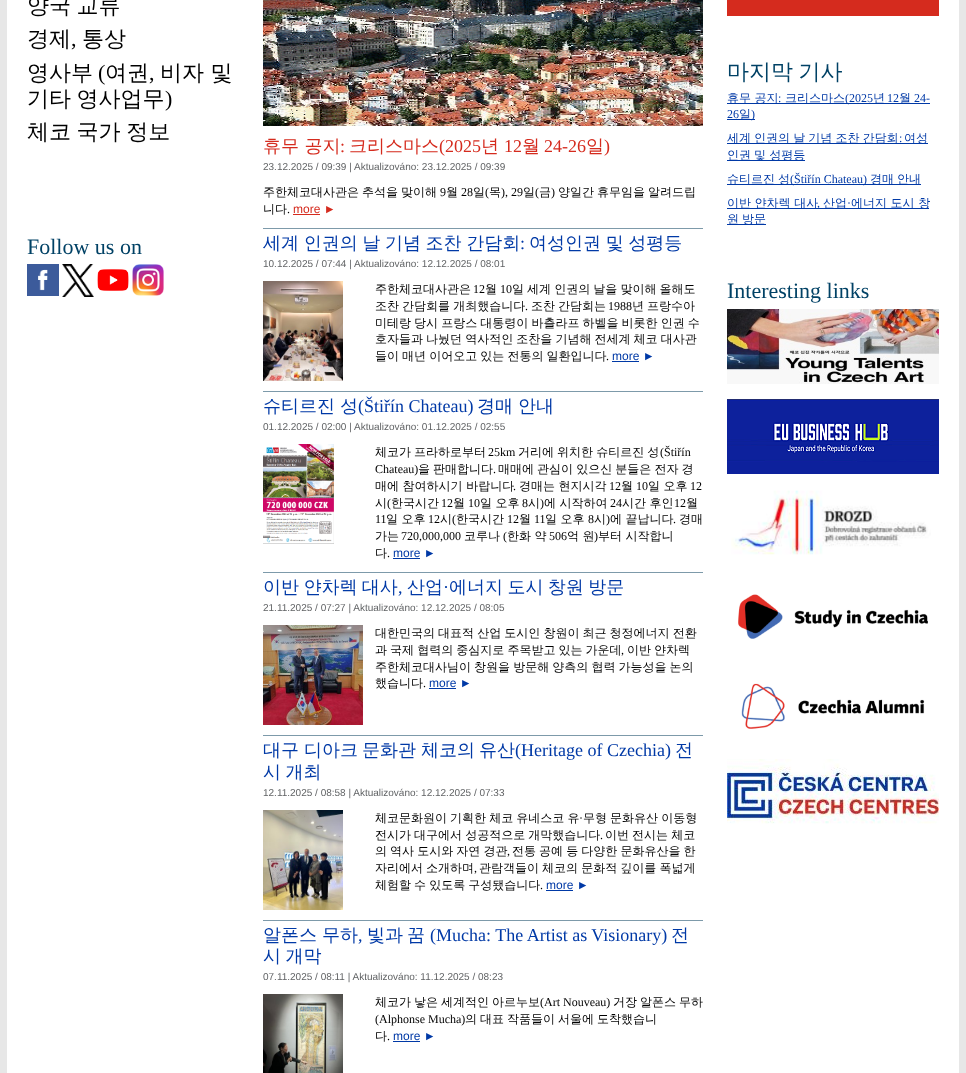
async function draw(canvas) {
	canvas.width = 966;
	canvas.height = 1073;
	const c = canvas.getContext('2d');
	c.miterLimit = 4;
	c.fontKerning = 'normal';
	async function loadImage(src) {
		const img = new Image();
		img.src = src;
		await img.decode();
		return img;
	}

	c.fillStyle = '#e7e7e7';
	c.fillRect(0, 0, 966, 1073);
	c.fillStyle = '#fff';
	c.fillRect(7, 0, 952, 1073);
	c.wordSpacing = '-1px';
	c.font = '500 22px WenQuanYi Zen Hei';
	c.fillStyle = '#000';
	c.fillText('양국 교류', 27, 13);
	c.wordSpacing = '0px';
	c.fillText('경제', 27, 46);
	c.font = '22px Liberation Serif';
	c.fillText(',', 71, 46);
	c.font = '500 22px WenQuanYi Zen Hei';
	c.fillText('통상', 82, 46);
	c.fillText('영사부', 27, 80);
	c.font = '22px Liberation Serif';
	c.fillText('(', 98, 80);
	c.font = '500 22px WenQuanYi Zen Hei';
	c.fillText('여권', 105, 80);
	c.font = '22px Liberation Serif';
	c.fillText(',', 149, 80);
	c.font = '500 22px WenQuanYi Zen Hei';
	c.fillText('비자 및', 160, 80);
	c.wordSpacing = '-1px';
	c.fillText('기타 영사업무', 27, 106);
	c.wordSpacing = '0px';
	c.font = '22px Liberation Serif';
	c.fillText(')', 165, 106);
	c.wordSpacing = '-1px';
	c.font = '500 22px WenQuanYi Zen Hei';
	c.fillText('체코 국가 정보', 27, 139);
	c.wordSpacing = '0px';
	c.font = '22px Liberation Serif';
	c.fillStyle = '#004165';
	c.fillText('Follow us on', 27, 254);
	c.drawImage(await loadImage('img1.png'), 27, 264, 32, 32);
	c.drawImage(await loadImage('img2.png'), 62, 264, 32, 33);
	c.drawImage(await loadImage('img3.png'), 97, 269, 32, 22);
	c.drawImage(await loadImage('img4.png'), 132, 264, 32, 32);
	c.drawImage(await loadImage('img5.png'), 263, 0, 440, 126);
	c.font = '500 18px WenQuanYi Zen Hei';
	c.fillStyle = '#d52b1e';
	c.fillText('휴무 공지', 263, 152);
	c.font = '18px Liberation Serif';
	c.fillText(':', 340, 152);
	c.font = '500 18px WenQuanYi Zen Hei';
	c.fillText('크리스마스', 349, 152);
	c.font = '18px Liberation Serif';
	c.fillText('(2025', 439, 152);
	c.font = '500 18px WenQuanYi Zen Hei';
	c.fillText('년', 481, 152);
	c.font = '18px Liberation Serif';
	c.fillText('12', 504, 152);
	c.font = '500 18px WenQuanYi Zen Hei';
	c.fillText('월', 522, 152);
	c.font = '18px Liberation Serif';
	c.fillText('24-26', 544, 152);
	c.font = '500 18px WenQuanYi Zen Hei';
	c.fillText('일', 586, 152);
	c.font = '18px Liberation Serif';
	c.fillText(')', 604, 152);
	c.font = '10px Liberation Sans';
	c.fillStyle = '#616365';
	c.fillText('23.12.2025 / 09:39 | Aktualizováno: 23.12.2025 / 09:39', 263, 170);
	c.font = '500 12px WenQuanYi Zen Hei';
	c.fillStyle = '#000';
	for (const [text, x, y] of [
		['주한체코대사관은', 263, 196],
		['추석을', 362, 196],
		['맞이해', 401, 196],
	]) {
		c.fillText(text, x, y);
	}
	c.font = '12px Liberation Serif';
	c.fillText('9', 440, 196);
	c.font = '500 12px WenQuanYi Zen Hei';
	c.fillText('월', 446, 196);
	c.font = '12px Liberation Serif';
	c.fillText('28', 461, 196);
	c.font = '500 12px WenQuanYi Zen Hei';
	c.fillText('일', 473, 196);
	c.font = '12px Liberation Serif';
	c.fillText('(', 485, 196);
	c.font = '500 12px WenQuanYi Zen Hei';
	c.fillText('목', 489, 196);
	c.font = '12px Liberation Serif';
	c.fillText('), 29', 501, 196);
	c.font = '500 12px WenQuanYi Zen Hei';
	c.fillText('일', 523, 196);
	c.font = '12px Liberation Serif';
	c.fillText('(', 535, 196);
	c.font = '500 12px WenQuanYi Zen Hei';
	c.fillText('금', 539, 196);
	c.font = '12px Liberation Serif';
	c.fillText(')', 551, 196);
	c.font = '500 12px WenQuanYi Zen Hei';
	for (const [text, x, y] of [
		['양일간', 558, 196],
		['휴무임을', 597, 196],
		['알려드립', 648, 196],
		['니다', 263, 213],
	]) {
		c.fillText(text, x, y);
	}
	c.font = '12px Liberation Serif';
	c.fillText('.', 287, 213);
	c.font = '12px Liberation Sans';
	c.fillStyle = '#d52b1e';
	c.fillText('more ►', 293, 213);
	c.fillRect(293, 214, 27, 1);
	c.fillStyle = '#7d9aaa';
	c.fillRect(263, 228, 440, 1);
	c.wordSpacing = '-0.75px';
	c.font = '500 18px WenQuanYi Zen Hei';
	c.fillStyle = '#0039a6';
	c.fillText('세계 인권의 날 기념 조찬 간담회', 263, 249);
	c.wordSpacing = '0px';
	c.font = '18px Liberation Serif';
	c.fillText(':', 520, 249);
	c.wordSpacing = '-0.75px';
	c.font = '500 18px WenQuanYi Zen Hei';
	c.fillText('여성인권 및 성평등', 529, 249);
	c.wordSpacing = '0px';
	c.font = '10px Liberation Sans';
	c.fillStyle = '#616365';
	c.fillText('10.12.2025 / 07:44 | Aktualizováno: 12.12.2025 / 08:01', 263, 267);
	c.drawImage(await loadImage('img6.png'), 263, 281, 80, 100);
	c.font = '500 12px WenQuanYi Zen Hei';
	c.fillStyle = '#000';
	c.fillText('주한체코대사관은', 375, 293);
	c.font = '12px Liberation Serif';
	c.fillText('12', 473, 293);
	c.font = '500 12px WenQuanYi Zen Hei';
	c.fillText('월', 485, 293);
	c.font = '12px Liberation Serif';
	c.fillText('10', 500, 293);
	c.wordSpacing = '-0.5px';
	c.font = '500 12px WenQuanYi Zen Hei';
	c.fillText('일 세계 인권의 날을 맞이해 올해도', 512, 293);
	c.fillText('조찬 간담회를 개최했습니다', 375, 310);
	c.wordSpacing = '0px';
	c.font = '12px Liberation Serif';
	c.fillText('.', 525, 310);
	c.wordSpacing = '-0.5px';
	c.font = '500 12px WenQuanYi Zen Hei';
	c.fillText('조찬 간담회는', 531, 310);
	c.wordSpacing = '0px';
	c.font = '12px Liberation Serif';
	c.fillText('1988', 608, 310);
	c.wordSpacing = '-0.5px';
	c.font = '500 12px WenQuanYi Zen Hei';
	for (const [text, x, y] of [
		['년 프랑수아', 632, 310],
		['미테랑 당시 프랑스 대통령이 바츨라프 하벨을 비롯한 인권 수', 375, 327],
		['호자들과 나눴던 역사적인 조찬을 기념해 전세계 체코 대사관', 375, 343],
		['들이 매년 이어오고 있는 전통의 일환입니다', 375, 360],
	]) {
		c.fillText(text, x, y);
	}
	c.wordSpacing = '0px';
	c.font = '12px Liberation Serif';
	c.fillText('.', 606, 360);
	c.font = '12px Liberation Sans';
	c.fillStyle = '#0039a6';
	c.fillText('more ►', 612, 360);
	c.fillRect(612, 361, 27, 1);
	c.fillStyle = '#7d9aaa';
	c.fillRect(263, 391, 440, 1);
	c.font = '500 18px WenQuanYi Zen Hei';
	c.fillStyle = '#0039a6';
	c.fillText('슈티르진', 263, 412);
	c.fillText('성', 340, 412);
	c.font = '18px Liberation Serif';
	c.fillText('(Štiřín Chateau)', 358, 412);
	c.font = '500 18px WenQuanYi Zen Hei';
	c.fillText('경매', 477, 412);
	c.fillText('안내', 518, 412);
	c.font = '10px Liberation Sans';
	c.fillStyle = '#616365';
	c.fillText('01.12.2025 / 02:00 | Aktualizováno: 01.12.2025 / 02:55', 263, 430);
	c.drawImage(await loadImage('img7.png'), 263, 444, 71, 100);
	c.wordSpacing = '-0.5px';
	c.font = '500 12px WenQuanYi Zen Hei';
	c.fillStyle = '#000';
	c.fillText('체코가 프라하로부터', 375, 456);
	c.wordSpacing = '0px';
	c.font = '12px Liberation Serif';
	c.fillText('25km', 488, 456);
	c.wordSpacing = '-0.5px';
	c.font = '500 12px WenQuanYi Zen Hei';
	c.fillText('거리에 위치한 슈티르진 성', 518, 456);
	c.wordSpacing = '0px';
	c.font = '12px Liberation Serif';
	c.fillText('(Štiřín', 660, 456);
	c.fillText('Chateau)', 375, 473);
	c.wordSpacing = '-0.5px';
	c.font = '500 12px WenQuanYi Zen Hei';
	c.fillText('을 판매합니다', 418, 473);
	c.wordSpacing = '0px';
	c.font = '12px Liberation Serif';
	c.fillText('.', 493, 473);
	c.wordSpacing = '-0.5px';
	c.font = '500 12px WenQuanYi Zen Hei';
	c.fillText('매매에 관심이 있으신 분들은 전자 경', 498, 473);
	c.wordSpacing = '0px';
	c.fillText('매에 참여하시기 바랍니다', 375, 490);
	c.font = '12px Liberation Serif';
	c.fillText('.', 513, 490);
	c.font = '500 12px WenQuanYi Zen Hei';
	c.fillText('경매는 현지시각', 519, 490);
	c.font = '12px Liberation Serif';
	c.fillText('12', 609, 490);
	c.font = '500 12px WenQuanYi Zen Hei';
	c.fillText('월', 621, 490);
	c.font = '12px Liberation Serif';
	c.fillText('10', 636, 490);
	c.font = '500 12px WenQuanYi Zen Hei';
	c.fillText('일 오후', 648, 490);
	c.font = '12px Liberation Serif';
	c.fillText('12', 690, 490);
	c.font = '500 12px WenQuanYi Zen Hei';
	c.fillText('시', 375, 507);
	c.font = '12px Liberation Serif';
	c.fillText('(', 387, 507);
	c.font = '500 12px WenQuanYi Zen Hei';
	c.fillText('한국시간', 391, 507);
	c.font = '12px Liberation Serif';
	c.fillText('12', 441, 507);
	c.font = '500 12px WenQuanYi Zen Hei';
	c.fillText('월', 453, 507);
	c.font = '12px Liberation Serif';
	c.fillText('10', 468, 507);
	c.font = '500 12px WenQuanYi Zen Hei';
	c.fillText('일 오후', 480, 507);
	c.font = '12px Liberation Serif';
	c.fillText('8', 522, 507);
	c.font = '500 12px WenQuanYi Zen Hei';
	c.fillText('시', 528, 507);
	c.font = '12px Liberation Serif';
	c.fillText(')', 540, 507);
	c.font = '500 12px WenQuanYi Zen Hei';
	c.fillText('에 시작하여', 544, 507);
	c.font = '12px Liberation Serif';
	c.fillText('24', 610, 507);
	c.font = '500 12px WenQuanYi Zen Hei';
	c.fillText('시간 후인', 622, 507);
	c.font = '12px Liberation Serif';
	c.fillText('12', 674, 507);
	c.font = '500 12px WenQuanYi Zen Hei';
	c.fillText('월', 686, 507);
	c.font = '12px Liberation Serif';
	c.fillText('11', 375, 523);
	c.font = '500 12px WenQuanYi Zen Hei';
	c.fillText('일 오후', 386, 523);
	c.font = '12px Liberation Serif';
	c.fillText('12', 428, 523);
	c.font = '500 12px WenQuanYi Zen Hei';
	c.fillText('시', 440, 523);
	c.font = '12px Liberation Serif';
	c.fillText('(', 452, 523);
	c.font = '500 12px WenQuanYi Zen Hei';
	c.fillText('한국시간', 456, 523);
	c.font = '12px Liberation Serif';
	c.fillText('12', 507, 523);
	c.font = '500 12px WenQuanYi Zen Hei';
	c.fillText('월', 519, 523);
	c.font = '12px Liberation Serif';
	c.fillText('11', 534, 523);
	c.font = '500 12px WenQuanYi Zen Hei';
	c.fillText('일 오후', 545, 523);
	c.font = '12px Liberation Serif';
	c.fillText('8', 588, 523);
	c.font = '500 12px WenQuanYi Zen Hei';
	c.fillText('시', 594, 523);
	c.font = '12px Liberation Serif';
	c.fillText(')', 606, 523);
	c.font = '500 12px WenQuanYi Zen Hei';
	c.fillText('에 끝납니다', 610, 523);
	c.font = '12px Liberation Serif';
	c.fillText('.', 673, 523);
	c.font = '500 12px WenQuanYi Zen Hei';
	c.fillText('경매', 679, 523);
	c.fillText('가는', 375, 540);
	c.font = '12px Liberation Serif';
	c.fillText('720,000,000', 401, 540);
	c.font = '500 12px WenQuanYi Zen Hei';
	c.fillText('코루나', 464, 540);
	c.font = '12px Liberation Serif';
	c.fillText('(', 503, 540);
	c.font = '500 12px WenQuanYi Zen Hei';
	c.fillText('한화 약', 507, 540);
	c.font = '12px Liberation Serif';
	c.fillText('506', 549, 540);
	c.font = '500 12px WenQuanYi Zen Hei';
	c.fillText('억 원', 567, 540);
	c.font = '12px Liberation Serif';
	c.fillText(')', 594, 540);
	c.font = '500 12px WenQuanYi Zen Hei';
	c.fillText('부터 시작합니', 598, 540);
	c.fillText('다', 375, 557);
	c.font = '12px Liberation Serif';
	c.fillText('.', 387, 557);
	c.font = '12px Liberation Sans';
	c.fillStyle = '#0039a6';
	c.fillText('more ►', 393, 557);
	c.fillRect(393, 558, 27, 1);
	c.fillStyle = '#7d9aaa';
	c.fillRect(263, 572, 440, 1);
	c.wordSpacing = '-1px';
	c.font = '500 18px WenQuanYi Zen Hei';
	c.fillStyle = '#0039a6';
	c.fillText('이반 얀차렉 대사', 263, 593);
	c.wordSpacing = '0px';
	c.fillText('산업', 407, 593);
	c.font = '18px Liberation Serif';
	c.fillText('·', 443, 593);
	c.wordSpacing = '-1px';
	c.font = '500 18px WenQuanYi Zen Hei';
	c.fillText('에너지 도시 창원 방문', 449, 593);
	c.wordSpacing = '0px';
	c.font = '18px Liberation Serif';
	c.fillText(',', 398, 593);
	c.font = '10px Liberation Sans';
	c.fillStyle = '#616365';
	c.fillText('21.11.2025 / 07:27 | Aktualizováno: 12.12.2025 / 08:05', 263, 611);
	c.drawImage(await loadImage('img8.png'), 263, 625, 100, 100);
	c.wordSpacing = '-0.5px';
	c.font = '500 12px WenQuanYi Zen Hei';
	c.fillStyle = '#000';
	c.fillText('대한민국의 대표적 산업 도시인 창원이 최근 청정에너지 전환', 375, 637);
	c.fillText('과 국제 협력의 중심지로 주목받고 있는 가운데', 375, 654);
	c.wordSpacing = '0px';
	c.font = '12px Liberation Serif';
	c.fillText(',', 621, 654);
	c.wordSpacing = '-0.5px';
	c.font = '500 12px WenQuanYi Zen Hei';
	c.fillText('이반 얀차렉', 627, 654);
	c.fillText('주한체코대사님이 창원을 방문해 양측의 협력 가능성을 논의', 375, 671);
	c.wordSpacing = '0px';
	c.fillText('했습니다', 375, 687);
	c.font = '12px Liberation Serif';
	c.fillText('.', 423, 687);
	c.font = '12px Liberation Sans';
	c.fillStyle = '#0039a6';
	c.fillText('more ►', 429, 687);
	c.fillRect(429, 688, 27, 1);
	c.fillStyle = '#7d9aaa';
	c.fillRect(263, 735, 440, 1);
	c.font = '500 18px WenQuanYi Zen Hei';
	c.fillStyle = '#0039a6';
	for (const [text, x, y] of [
		['대구', 263, 756],
		['디아크', 304, 756],
		['문화관', 362, 756],
		['체코의', 421, 756],
		['유산', 479, 756],
	]) {
		c.fillText(text, x, y);
	}
	c.font = '18px Liberation Serif';
	c.fillText('(Heritage of Czechia)', 515, 756);
	c.font = '500 18px WenQuanYi Zen Hei';
	c.fillText('전', 675, 756);
	c.wordSpacing = '-1px';
	c.fillText('시 개최', 263, 778);
	c.wordSpacing = '0px';
	c.font = '10px Liberation Sans';
	c.fillStyle = '#616365';
	c.fillText('12.11.2025 / 08:58 | Aktualizováno: 12.12.2025 / 07:33', 263, 796);
	c.drawImage(await loadImage('img9.png'), 263, 810, 80, 100);
	c.wordSpacing = '-0.5px';
	c.font = '500 12px WenQuanYi Zen Hei';
	c.fillStyle = '#000';
	c.fillText('체코문화원이 기획한 체코 유네스코 유', 375, 822);
	c.wordSpacing = '0px';
	c.font = '12px Liberation Serif';
	c.fillText('·', 579, 822);
	c.wordSpacing = '-0.5px';
	c.font = '500 12px WenQuanYi Zen Hei';
	c.fillText('무형 문화유산 이동형', 583, 822);
	c.fillText('전시가 대구에서 성공적으로 개막했습니다', 375, 839);
	c.wordSpacing = '0px';
	c.font = '12px Liberation Serif';
	c.fillText('.', 600, 839);
	c.wordSpacing = '-0.5px';
	c.font = '500 12px WenQuanYi Zen Hei';
	c.fillText('이번 전시는 체코', 605, 839);
	c.fillText('의 역사 도시와 자연 경관', 375, 855);
	c.wordSpacing = '0px';
	c.font = '12px Liberation Serif';
	c.fillText(',', 507, 855);
	c.wordSpacing = '-0.5px';
	c.font = '500 12px WenQuanYi Zen Hei';
	c.fillText('전통 공예 등 다양한 문화유산을 한', 512, 855);
	c.fillText('자리에서 소개하며', 375, 872);
	c.wordSpacing = '0px';
	c.font = '12px Liberation Serif';
	c.fillText(',', 474, 872);
	c.wordSpacing = '-0.5px';
	c.font = '500 12px WenQuanYi Zen Hei';
	c.fillText('관람객들이 체코의 문화적 깊이를 폭넓게', 479, 872);
	c.fillText('체험할 수 있도록 구성됐습니다', 375, 889);
	c.wordSpacing = '0px';
	c.font = '12px Liberation Serif';
	c.fillText('.', 540, 889);
	c.font = '12px Liberation Sans';
	c.fillStyle = '#0039a6';
	c.fillText('more ►', 546, 889);
	c.fillRect(546, 890, 27, 1);
	c.fillStyle = '#7d9aaa';
	c.fillRect(263, 920, 440, 1);
	c.font = '500 18px WenQuanYi Zen Hei';
	c.fillStyle = '#0039a6';
	c.fillText('알폰스', 263, 941);
	c.fillText('무하', 322, 941);
	c.font = '18px Liberation Serif';
	c.fillText(',', 358, 941);
	c.font = '500 18px WenQuanYi Zen Hei';
	c.fillText('빛과', 367, 941);
	c.fillText('꿈', 407, 941);
	c.font = '18px Liberation Serif';
	c.fillText('(Mucha: The Artist as Visionary)', 430, 941);
	c.font = '500 18px WenQuanYi Zen Hei';
	c.fillText('전', 671, 941);
	c.wordSpacing = '-1px';
	c.fillText('시 개막', 263, 962);
	c.wordSpacing = '0px';
	c.font = '10px Liberation Sans';
	c.fillStyle = '#616365';
	c.fillText('07.11.2025 / 08:11 | Aktualizováno: 11.12.2025 / 08:23', 263, 980);
	c.drawImage(await loadImage('img10.png'), 263, 994, 80, 79);
	c.font = '500 12px WenQuanYi Zen Hei';
	c.fillStyle = '#000';
	for (const [text, x, y] of [
		['체코가', 375, 1006],
		['낳은', 414, 1006],
		['세계적인', 441, 1006],
		['아르누보', 492, 1006],
	]) {
		c.fillText(text, x, y);
	}
	c.font = '12px Liberation Serif';
	c.fillText('(Art Nouveau)', 540, 1006);
	c.font = '500 12px WenQuanYi Zen Hei';
	for (const [text, x, y] of [
		['거장', 613, 1006],
		['알폰스', 640, 1006],
		['무하', 679, 1006],
	]) {
		c.fillText(text, x, y);
	}
	c.font = '12px Liberation Serif';
	c.fillText('(Alphonse Mucha)', 375, 1023);
	c.font = '500 12px WenQuanYi Zen Hei';
	for (const [text, x, y] of [
		['의', 465, 1023],
		['대표', 480, 1023],
		['작품들이', 507, 1023],
		['서울에', 558, 1023],
		['도착했습니', 597, 1023],
		['다', 375, 1040],
	]) {
		c.fillText(text, x, y);
	}
	c.font = '12px Liberation Serif';
	c.fillText('.', 387, 1040);
	c.font = '12px Liberation Sans';
	c.fillStyle = '#0039a6';
	c.fillText('more ►', 393, 1040);
	c.fillRect(393, 1041, 27, 1);
	c.fillStyle = '#d52b1e';
	c.fillRect(727, 0, 212, 16);
	c.wordSpacing = '-1px';
	c.font = '500 22px WenQuanYi Zen Hei';
	c.fillStyle = '#004165';
	c.fillText('마지막 기사', 727, 79);
	c.fillStyle = '#0039a6';
	c.fillRect(727, 103, 203, 1);
	c.wordSpacing = '0px';
	c.font = '500 12px WenQuanYi Zen Hei';
	c.fillText('휴무 공지', 727, 102);
	c.font = '12px Liberation Serif';
	c.fillText(':', 778, 102);
	c.font = '500 12px WenQuanYi Zen Hei';
	c.fillText('크리스마스', 785, 102);
	c.font = '12px Liberation Serif';
	c.fillText('(2025', 845, 102);
	c.font = '500 12px WenQuanYi Zen Hei';
	c.fillText('년', 873, 102);
	c.font = '12px Liberation Serif';
	c.fillText('12', 887, 102);
	c.font = '500 12px WenQuanYi Zen Hei';
	c.fillText('월', 899, 102);
	c.font = '12px Liberation Serif';
	c.fillText('24-', 914, 102);
	c.fillText('26', 727, 118);
	c.fillRect(727, 119, 28, 1);
	c.font = '500 12px WenQuanYi Zen Hei';
	c.fillText('일', 739, 118);
	c.font = '12px Liberation Serif';
	c.fillText(')', 751, 118);
	c.fillRect(727, 143, 201, 1);
	c.wordSpacing = '-0.5px';
	c.font = '500 12px WenQuanYi Zen Hei';
	c.fillText('세계 인권의 날 기념 조찬 간담회', 727, 142);
	c.wordSpacing = '0px';
	c.font = '12px Liberation Serif';
	c.fillText(':', 899, 142);
	c.font = '500 12px WenQuanYi Zen Hei';
	c.fillText('여성', 904, 142);
	c.fillRect(727, 160, 78, 1);
	c.wordSpacing = '-0.5px';
	c.fillText('인권 및 성평등', 727, 159);
	c.fillRect(727, 184, 194, 1);
	c.wordSpacing = '0px';
	c.fillText('슈티르진', 727, 183);
	c.fillText('성', 778, 183);
	c.font = '12px Liberation Serif';
	c.fillText('(Štiřín Chateau)', 790, 183);
	c.font = '500 12px WenQuanYi Zen Hei';
	c.fillText('경매', 870, 183);
	c.fillText('안내', 897, 183);
	c.fillRect(727, 208, 202, 1);
	c.fillText('이반 얀차렉 대사', 727, 207);
	c.fillText('산업', 823, 207);
	c.font = '12px Liberation Serif';
	c.fillText('·', 847, 207);
	c.font = '500 12px WenQuanYi Zen Hei';
	c.fillText('에너지 도시 창', 851, 207);
	c.font = '12px Liberation Serif';
	c.fillText(',', 817, 207);
	c.fillRect(727, 224, 39, 1);
	c.wordSpacing = '-0.5px';
	c.font = '500 12px WenQuanYi Zen Hei';
	c.fillText('원 방문', 727, 223);
	c.wordSpacing = '0px';
	c.font = '22px Liberation Serif';
	c.fillStyle = '#004165';
	c.fillText('Interesting links', 727, 298);
	c.drawImage(await loadImage('img11.png'), 727, 309, 212, 75);
	c.drawImage(await loadImage('img12.png'), 727, 399, 212, 75);
	c.drawImage(await loadImage('img13.png'), 731, 490, 200, 65);
	c.drawImage(await loadImage('img14.png'), 738, 594, 190, 45);
	c.drawImage(await loadImage('img15.png'), 741, 683, 184, 46);
	c.drawImage(await loadImage('img16.png'), 727, 759, 212, 65);
}

draw(document.querySelector('canvas'));
